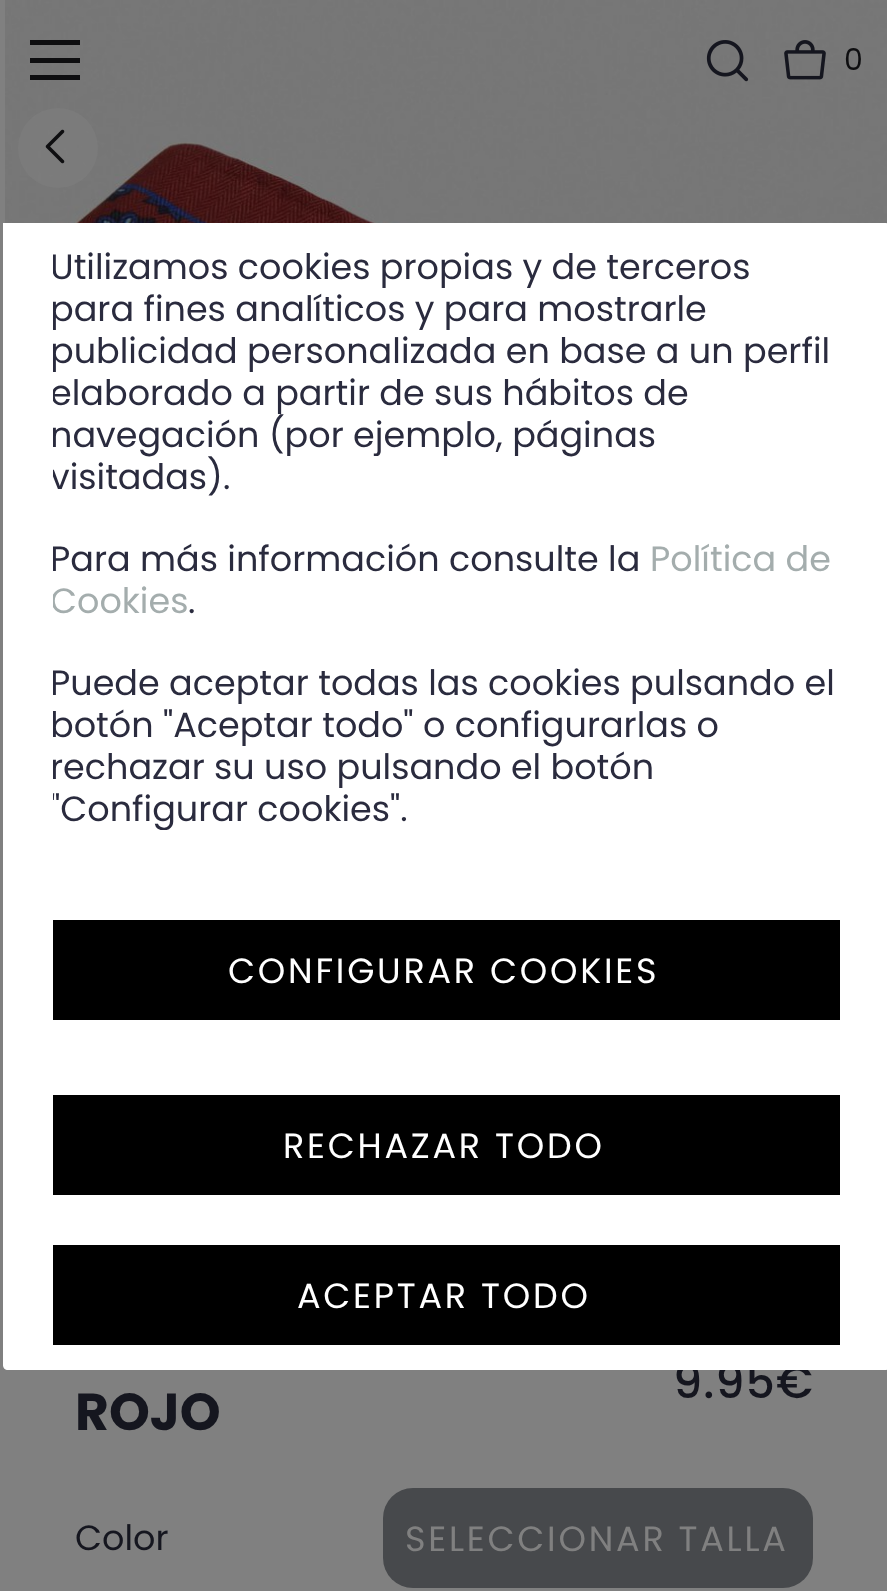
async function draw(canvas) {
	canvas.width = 887;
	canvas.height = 1591;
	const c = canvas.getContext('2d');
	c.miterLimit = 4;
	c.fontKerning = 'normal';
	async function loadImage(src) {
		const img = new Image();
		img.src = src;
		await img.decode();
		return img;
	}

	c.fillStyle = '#808080';
	c.fillRect(0, 0, 887, 1591);
	c.drawImage(await loadImage('img3.png'), 5, 0, 882, 224);
	for (const [x, y, w, h, color] of [
		[30, 40, 50, 5, '#0e0e10'],
		[30, 58, 50, 5, '#0e0e10'],
		[30, 75, 50, 5, '#0e0e10'],
	]) {
		c.fillStyle = color;
		c.fillRect(x, y, w, h);
	}
	c.drawImage(await loadImage('img1.png'), 706, 40, 43, 42);
	c.drawImage(await loadImage('img2.png'), 784, 40, 42, 40);
	c.font = '30px Poppins';
	c.fillText('0', 844, 70);
	c.fillStyle = '#80808080';
	c.beginPath();
	c.arc(58, 148, 40, 0, 2 * Math.PI);
	c.fill();
	c.drawImage(await loadImage('img4.png'), 45, 129, 20, 35);
	c.letterSpacing = '1px';
	c.font = '500 46px Poppins';
	c.fillStyle = '#15161f';
	c.fillText('9.95€', 673, 1398);
	c.letterSpacing = '0px';
	c.font = 'bold 52px Poppins';
	c.fillText('ROJO', 75, 1430);
	c.font = '35px Poppins';
	c.fillText('Color', 75, 1550);
	c.fillStyle = '#47494c';
	c.beginPath();
	c.roundRect(383, 1488, 430, 100, 30);
	c.fill();
	c.letterSpacing = '2.75px';
	c.fillStyle = '#808080';
	c.fillText('SELECCIONAR TALLA', 405, 1551);
	c.fillStyle = '#fff';
	c.beginPath();
	c.moveTo(3, 223);
	c.lineTo(885, 223);
	c.bezierCurveTo(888, 223, 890, 225, 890, 228);
	c.lineTo(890, 1365);
	c.bezierCurveTo(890, 1368, 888, 1370, 885, 1370);
	c.lineTo(8, 1370);
	c.bezierCurveTo(5, 1370, 3, 1368, 3, 1365);
	c.closePath();
	c.fill();
	c.save();
	c.beginPath();
	c.rect(53, 248, 787, 250);
	c.clip();
	c.letterSpacing = '0px';
	c.fillStyle = '#2a2b3e';
	for (const [text, x, y] of [
		['Utilizamos cookies propias y de terceros', 50, 279],
		['para fines analíticos y para mostrarle', 50, 321],
		['publicidad personalizada en base a un perfil', 50, 363],
		['elaborado a partir de sus hábitos de', 50, 405],
		['navegación (por ejemplo, páginas', 50, 447],
		['visitadas).', 50, 489],
	]) {
		c.fillText(text, x, y);
	}
	c.restore();
	c.save();
	c.beginPath();
	c.rect(53, 538, 787, 85);
	c.clip();
	c.letterSpacing = '0px';
	c.fillStyle = '#2a2b3e';
	c.fillText('Para más información consulte la', 50, 571);
	c.restore();
	c.letterSpacing = '0px';
	c.fillStyle = '#a4adad';
	c.fillText('Política de', 650, 571);
	c.save();
	c.beginPath();
	c.rect(53, 538, 787, 85);
	c.clip();
	c.fillText('Cookies', 50, 613);
	c.restore();
	c.fillStyle = '#2a2b3e';
	c.fillText('.', 188, 613);
	c.save();
	c.beginPath();
	c.rect(53, 663, 787, 167);
	c.clip();
	for (const [text, x, y] of [
		['Puede aceptar todas las cookies pulsando el', 50, 695],
		['botón "Aceptar todo" o configurarlas o', 50, 737],
		['rechazar su uso pulsando el botón', 50, 779],
		['"Configurar cookies".', 50, 821],
	]) {
		c.fillText(text, x, y);
	}
	c.restore();
	c.fillStyle = '#000';
	c.fillRect(53, 920, 787, 100);
	c.letterSpacing = '2.75px';
	c.fillStyle = '#fff';
	c.fillText('CONFIGURAR COOKIES', 228, 983);
	c.fillStyle = '#000';
	c.fillRect(53, 1095, 787, 100);
	c.fillStyle = '#fff';
	c.fillText('RECHAZAR TODO', 283, 1158);
	c.fillStyle = '#000';
	c.fillRect(53, 1245, 787, 100);
	c.fillStyle = '#fff';
	c.fillText('ACEPTAR TODO', 297, 1308);
}

draw(document.querySelector('canvas'));
